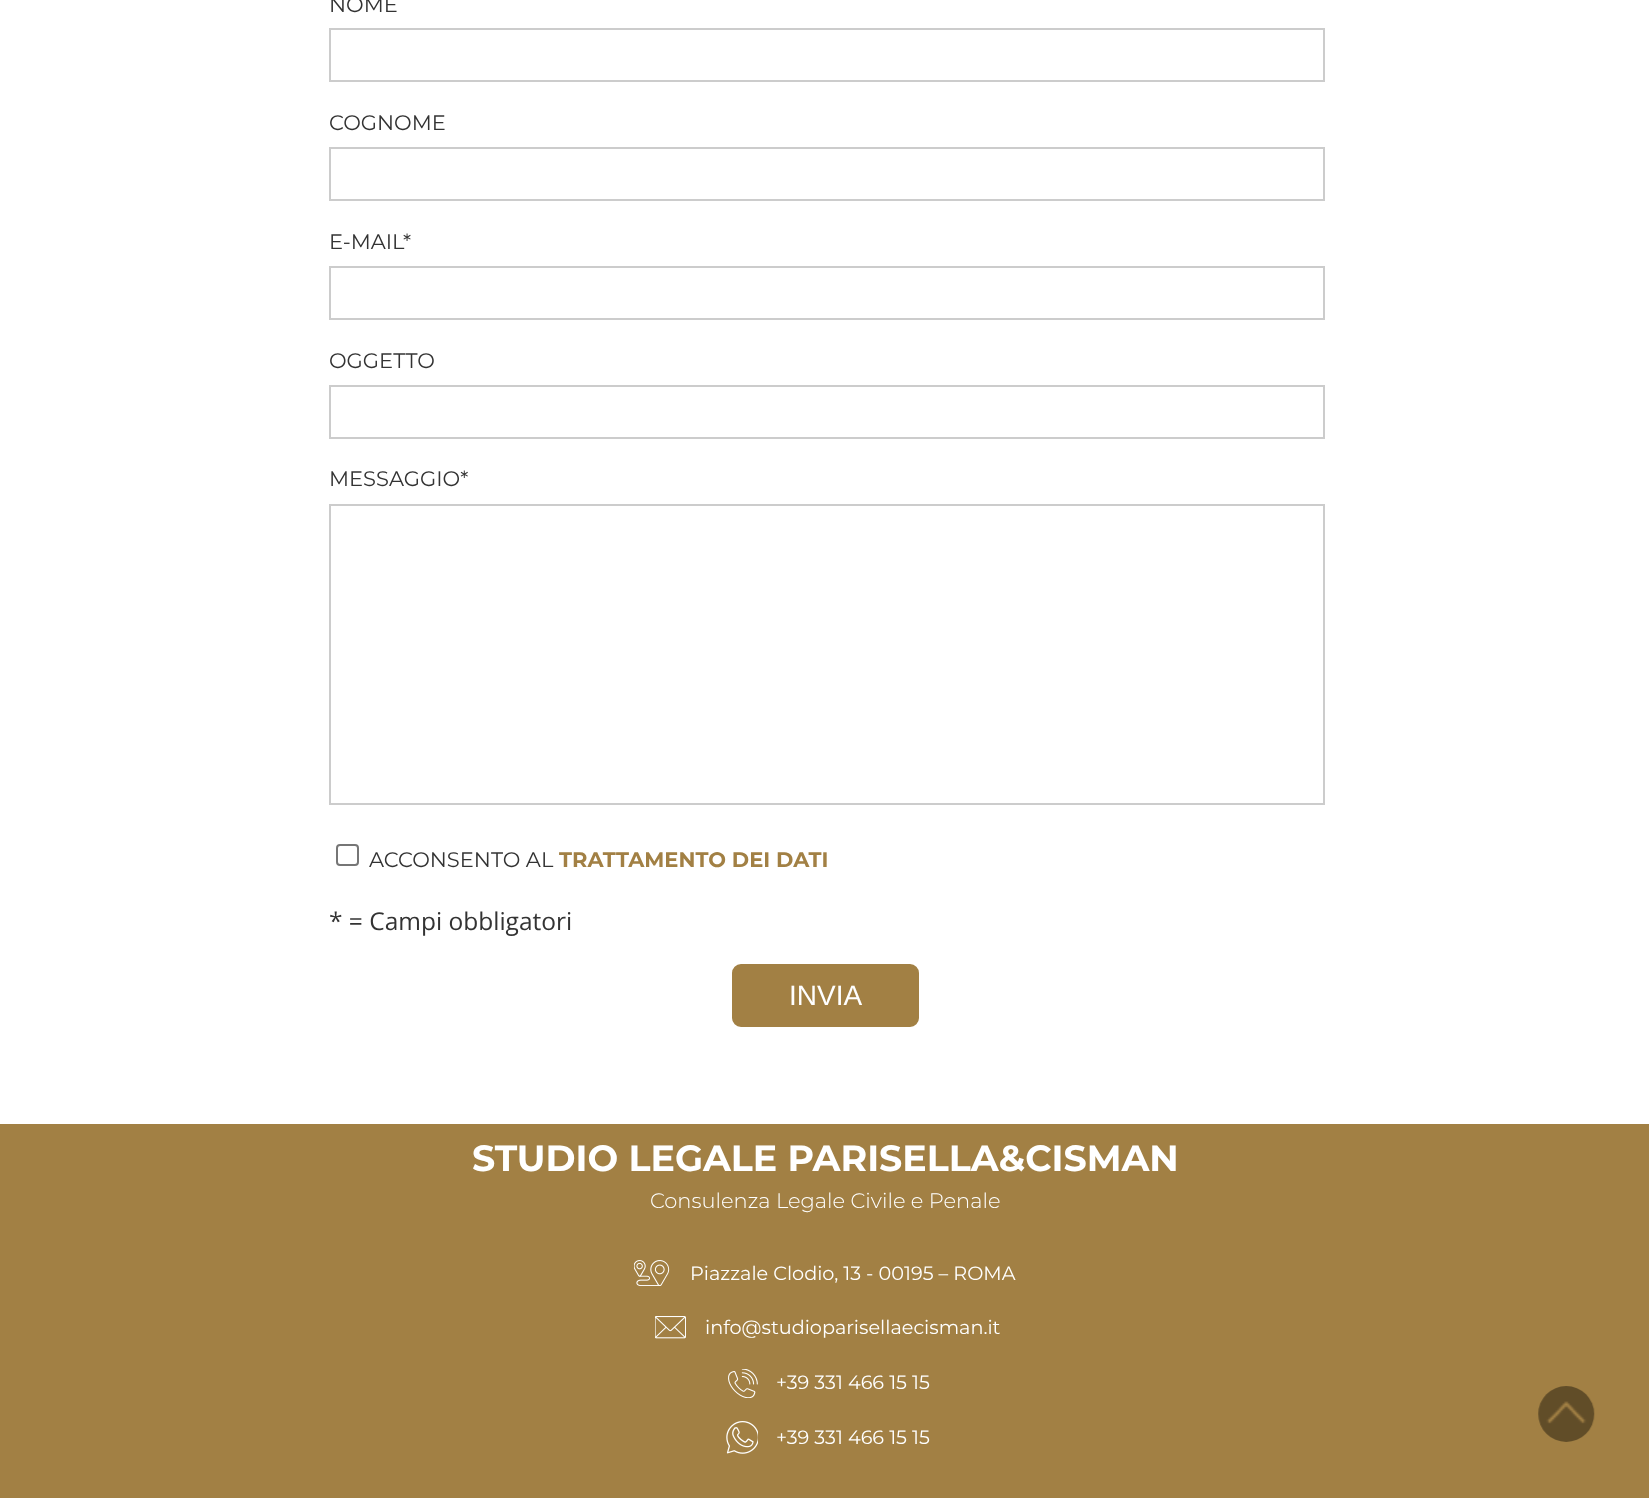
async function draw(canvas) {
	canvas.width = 1649;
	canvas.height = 1498;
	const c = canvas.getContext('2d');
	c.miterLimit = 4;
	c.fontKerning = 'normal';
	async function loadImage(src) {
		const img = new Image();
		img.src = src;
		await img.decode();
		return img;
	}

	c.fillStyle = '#fff';
	c.fillRect(0, 0, 1649, 1498);
	c.font = '21px Montserrat';
	c.fillStyle = '#333';
	c.fillText('NOME', 329, 12);
	c.strokeStyle = '#ccc';
	c.lineWidth = 2;
	c.strokeRect(330, 29, 994, 52);
	c.fillText('COGNOME', 329, 130);
	c.strokeRect(330, 148, 994, 52);
	c.fillText('E-MAIL', 329, 249);
	c.fillText('*', 403, 249);
	c.strokeRect(330, 267, 994, 52);
	c.fillText('OGGETTO', 329, 368);
	c.strokeRect(330, 386, 994, 52);
	c.fillText('MESSAGGIO*', 329, 486);
	c.strokeRect(330, 505, 994, 299);
	c.beginPath();
	c.roundRect(337, 845, 21, 20, 3);
	c.strokeStyle = '#767676';
	c.stroke();
	c.fillText('ACCONSENTO AL', 369, 867);
	c.font = 'bold 21px Montserrat';
	c.fillStyle = '#a28044';
	c.fillText('TRATTAMENTO DEI DATI', 559, 867);
	c.font = '24.5px Open Sans';
	c.fillStyle = '#333';
	c.fillText('* = Campi obbligatori', 329, 930);
	c.fillStyle = '#a28044';
	c.beginPath();
	c.roundRect(733, 965, 185, 61, 8);
	c.fill();
	c.strokeStyle = '#a28044';
	c.stroke();
	c.font = '28px Liberation Sans';
	c.fillStyle = '#fff';
	c.fillText('INVIA', 789, 1005);
	c.fillStyle = '#a28044';
	c.fillRect(0, 1124, 1649, 374);
	c.font = 'bold 36.4px Montserrat';
	c.fillStyle = '#fff';
	c.fillText('STUDIO LEGALE PARISELLA&CISMAN', 472, 1171);
	c.font = '300 21px Montserrat';
	c.fillText('Consulenza Legale Civile e Penale', 650, 1208);
	c.drawImage(await loadImage('img1.png'), 634, 1260, 36, 26);
	c.font = '19.25px Montserrat';
	c.fillText('Piazzale Clodio, 13 - 00195 – ROMA', 690, 1280);
	c.drawImage(await loadImage('img2.png'), 655, 1316, 31, 23);
	c.fillText('info@studioparisellaecisman.it', 705, 1334);
	c.drawImage(await loadImage('img3.png'), 728, 1369, 30, 29);
	c.fillText('+39 331 466 15 15', 776, 1389);
	c.drawImage(await loadImage('img4.png'), 726, 1421, 32, 33);
	c.fillText('+39 331 466 15 15', 776, 1444);
	c.drawImage(await loadImage('img5.png'), 1538, 1386, 57, 56);
}

draw(document.querySelector('canvas'));
